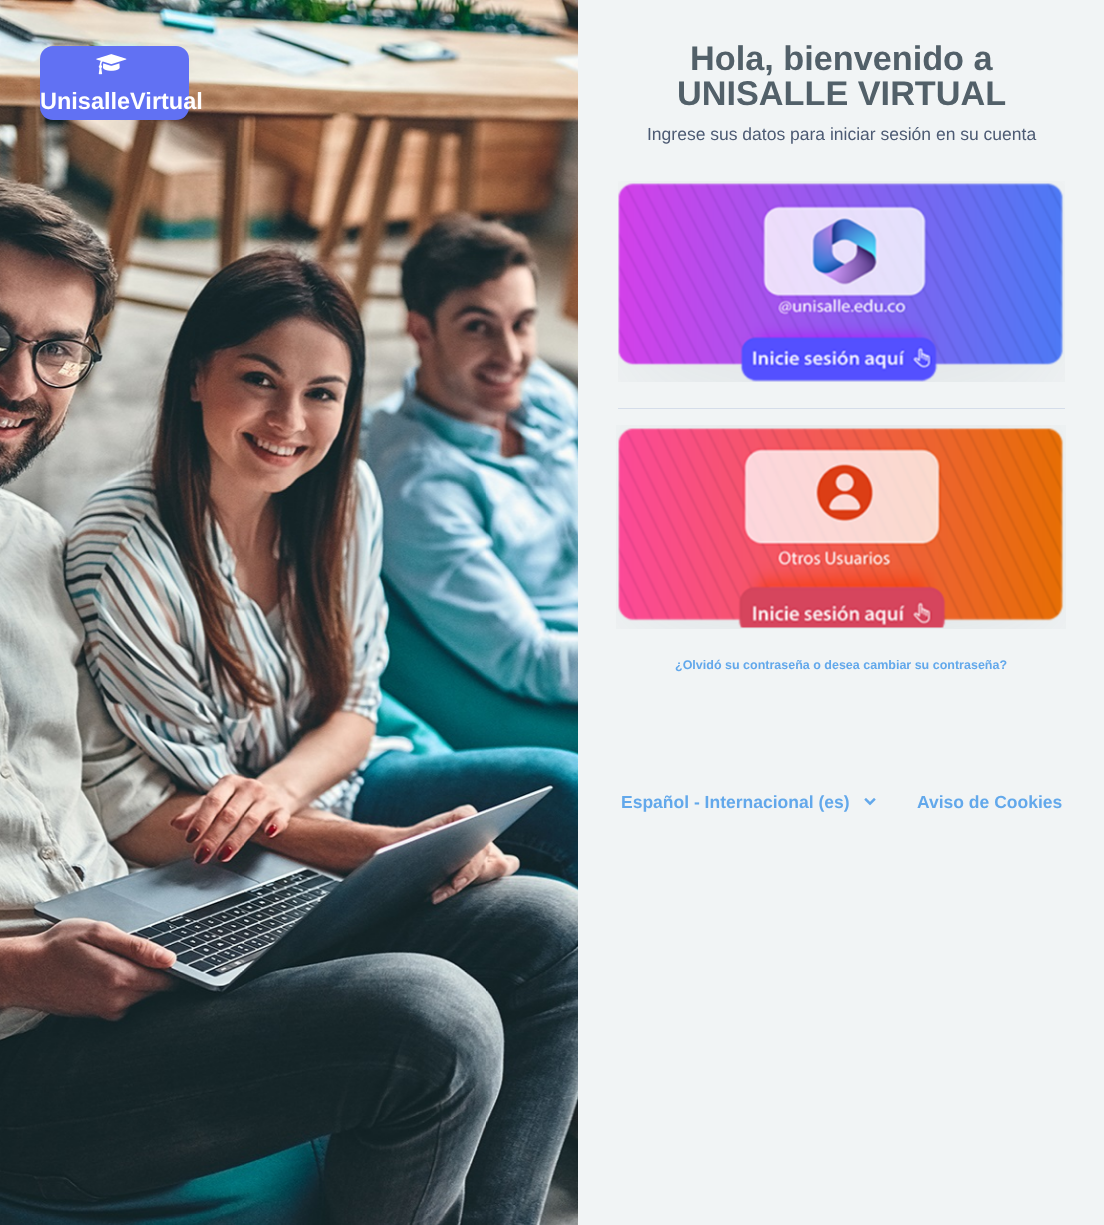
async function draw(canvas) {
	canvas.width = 1104;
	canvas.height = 1225;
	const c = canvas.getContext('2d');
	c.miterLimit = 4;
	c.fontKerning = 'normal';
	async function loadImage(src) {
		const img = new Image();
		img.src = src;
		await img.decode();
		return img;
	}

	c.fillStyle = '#fff';
	c.fillRect(0, 0, 1104, 1225);
	c.drawImage(await loadImage('img1.png'), 0, 0, 578, 1225);
	c.fillStyle = '#6171f3';
	c.beginPath();
	c.roundRect(40, 46, 149, 74, 13);
	c.fill();
	c.drawImage(await loadImage('img2.png'), 96, 54, 31, 21);
	c.font = 'bold 23.5px Liberation Sans';
	c.fillStyle = '#fff';
	c.fillText('UnisalleVirtual', 40, 109);
	c.fillStyle = '#f1f4f5';
	c.fillRect(578, 0, 526, 1225);
	c.font = 'bold 34.25px Liberation Sans';
	c.fillStyle = '#526069';
	c.fillText('Hola, bienvenido a', 690, 70);
	c.fillText('UNISALLE VIRTUAL', 677, 105);
	c.font = '17.5px Liberation Sans';
	c.fillStyle = '#4c5a73';
	c.fillText('Ingrese sus datos para iniciar sesión en su cuenta', 647, 140);
	c.drawImage(await loadImage('img3.png'), 618, 181, 447, 201);
	c.fillStyle = '#d5ddea';
	c.fillRect(618, 408, 447, 1);
	c.drawImage(await loadImage('img4.png'), 616, 425, 450, 204);
	c.font = 'bold 12.5px Liberation Sans';
	c.fillStyle = '#62a8eb';
	c.fillText('¿Olvidó su contraseña o desea cambiar su contraseña?', 675, 669);
	c.font = 'bold 17.5px Liberation Sans';
	c.fillText('Español - Internacional (es)', 621, 808);
	c.drawImage(await loadImage('img5.png'), 864, 798, 12, 8);
	c.fillText('Aviso de Cookies', 917, 808);
}

draw(document.querySelector('canvas'));
